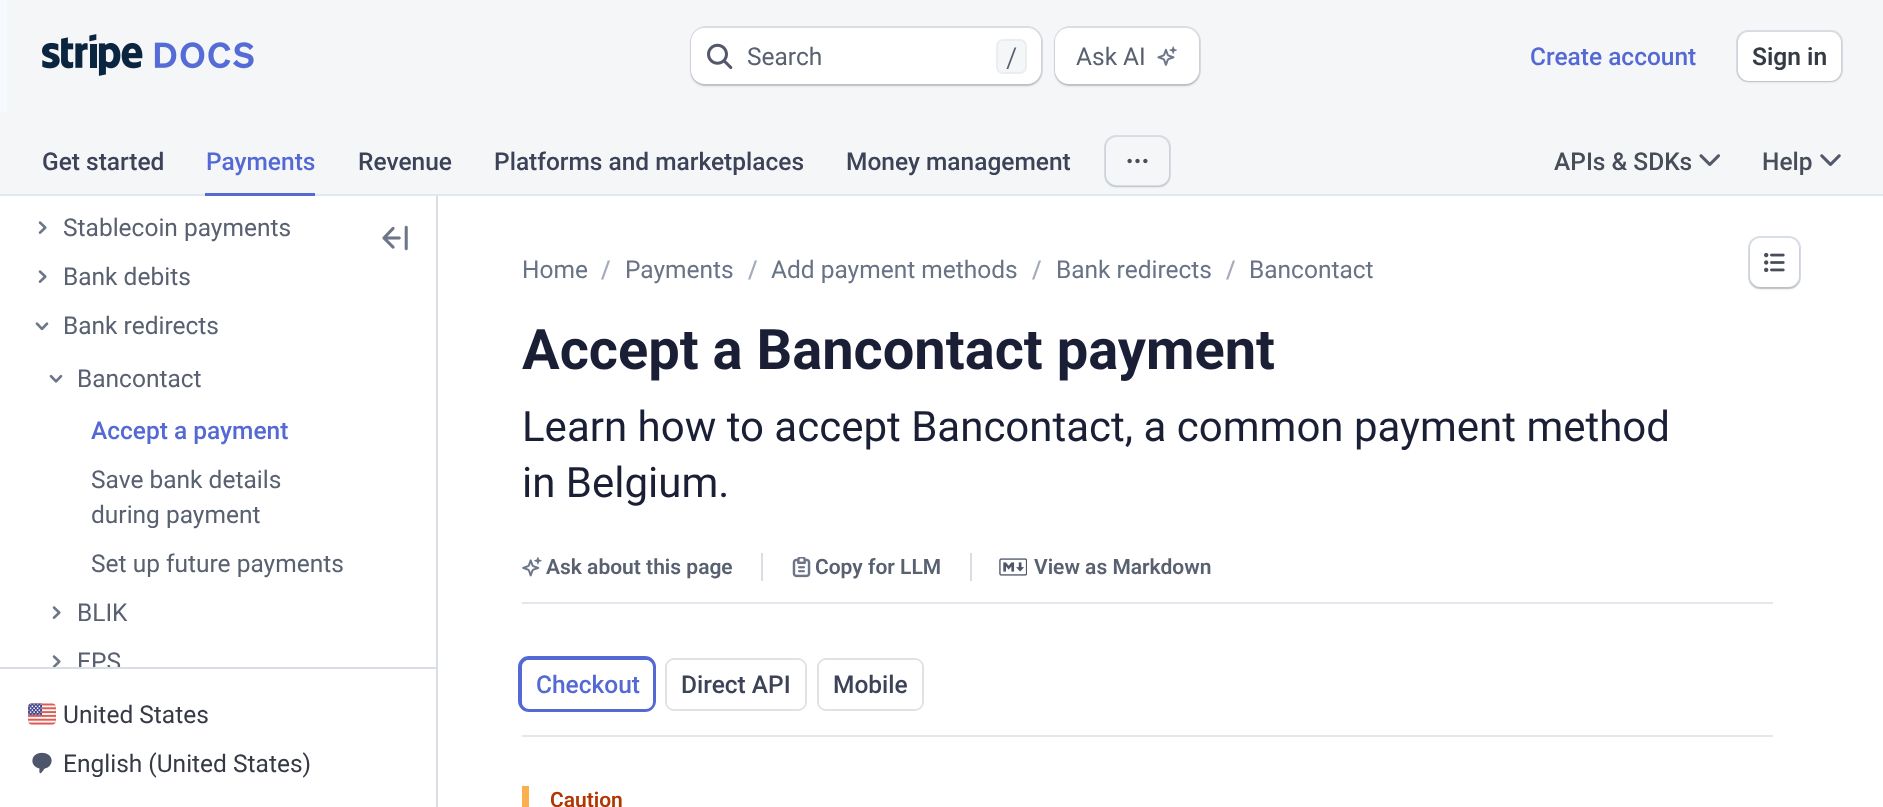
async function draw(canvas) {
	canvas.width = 1883;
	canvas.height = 807;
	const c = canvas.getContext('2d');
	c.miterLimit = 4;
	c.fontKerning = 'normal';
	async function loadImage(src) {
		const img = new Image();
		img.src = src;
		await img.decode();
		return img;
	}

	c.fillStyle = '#fff';
	c.fillRect(0, 0, 1883, 807);
	c.fillStyle = '#f7fafc';
	c.fillRect(0, 0, 7, 112);
	c.fillStyle = '#f5f6f8';
	c.fillRect(7, 0, 1876, 112);
	c.drawImage(await loadImage('img1.png'), 42, 34, 212, 42);
	c.beginPath();
	c.roundRect(691, 27, 351, 58, 15);
	c.strokeStyle = '#d8dee4';
	c.lineWidth = 2;
	c.stroke();
	c.fillStyle = '#10111a29';
	c.filter = 'blur(1px)';
	c.beginPath();
	c.roundRect(691, 30, 350, 56, 14);
	c.fill();
	c.filter = 'none';
	c.fillStyle = '#fff';
	c.beginPath();
	c.roundRect(691, 28, 350, 56, 14);
	c.fill();
	c.drawImage(await loadImage('img2.png'), 707, 43, 26, 27);
	c.font = '24.5px Roboto';
	c.fillStyle = '#596171';
	c.fillText('Search', 747, 65);
	c.fillStyle = '#f5f6f8';
	c.beginPath();
	c.roundRect(997, 40, 29, 33, 6);
	c.fill();
	c.strokeStyle = '#ebeef1';
	c.stroke();
	c.font = '24.5px Source Code Pro';
	c.fillStyle = '#596171';
	c.fillText('/', 1004, 65);
	c.beginPath();
	c.roundRect(1055, 27, 145, 58, 15);
	c.strokeStyle = '#d8dee4';
	c.stroke();
	c.fillStyle = '#10111a29';
	c.filter = 'blur(1px)';
	c.beginPath();
	c.roundRect(1055, 30, 144, 56, 14);
	c.fill();
	c.filter = 'none';
	c.fillStyle = '#fff';
	c.beginPath();
	c.roundRect(1055, 28, 144, 56, 14);
	c.fill();
	c.font = '24.5px Roboto';
	c.fillStyle = '#596171';
	c.fillText('Ask AI', 1076, 65);
	c.drawImage(await loadImage('img3.png'), 1157, 46, 20, 20);
	c.font = '500 24.5px Roboto';
	c.fillStyle = '#5469d4';
	c.fillText('Create account', 1530, 65);
	c.beginPath();
	c.roundRect(1737, 31, 105, 50, 11);
	c.stroke();
	c.fillStyle = '#10111a29';
	c.filter = 'blur(1px)';
	c.beginPath();
	c.roundRect(1738, 33, 103, 49, 11);
	c.fill();
	c.filter = 'none';
	c.fillStyle = '#fff';
	c.beginPath();
	c.roundRect(1738, 32, 103, 49, 11);
	c.fill();
	c.font = '600 24.5px Roboto';
	c.fillStyle = '#353a44';
	c.fillText('Sign in', 1752, 65);
	c.fillStyle = '#f5f6f8';
	c.fillRect(0, 112, 1883, 82);
	c.fillStyle = '#e3e8ee';
	c.fillRect(0, 194, 1883, 2);
	c.font = '500 24.5px Roboto';
	c.fillStyle = '#3c4257';
	c.fillText('Get started', 42, 170);
	c.fillStyle = '#5469d4';
	c.fillText('Payments', 206, 170);
	c.fillRect(205, 193, 110, 3);
	c.fillStyle = '#3c4257';
	for (const [text, x, y] of [
		['Revenue', 358, 170],
		['Platforms and marketplaces', 494, 170],
		['Money management', 846, 170],
	]) {
		c.fillText(text, x, y);
	}
	c.beginPath();
	c.roundRect(1105, 136, 65, 50, 11);
	c.stroke();
	c.save();
	c.beginPath();
	c.moveTo(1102, 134);
	c.lineTo(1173, 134);
	c.lineTo(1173, 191);
	c.lineTo(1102, 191);
	c.closePath();
	c.moveTo(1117, 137);
	c.lineTo(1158, 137);
	c.bezierCurveTo(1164, 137, 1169, 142, 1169, 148);
	c.lineTo(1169, 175);
	c.bezierCurveTo(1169, 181, 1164, 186, 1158, 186);
	c.lineTo(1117, 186);
	c.bezierCurveTo(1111, 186, 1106, 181, 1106, 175);
	c.lineTo(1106, 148);
	c.bezierCurveTo(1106, 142, 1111, 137, 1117, 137);
	c.closePath();
	c.clip('evenodd');
	c.fillStyle = '#10111a29';
	c.filter = 'blur(1px)';
	c.beginPath();
	c.roundRect(1106, 138, 63, 49, 11);
	c.fill();
	c.filter = 'none';
	c.restore();
	c.drawImage(await loadImage('img4.png'), 1127, 158, 21, 6);
	c.fillStyle = '#474e5a';
	c.fillText('APIs & SDKs', 1554, 170);
	c.drawImage(await loadImage('img5.png'), 1699, 154, 21, 12);
	c.fillText('Help', 1762, 170);
	c.drawImage(await loadImage('img6.png'), 1820, 154, 21, 12);
	c.fillStyle = '#d8dee4';
	c.fillRect(436, 196, 2, 611);
	c.drawImage(await loadImage('img7.png'), 38, 221, 9, 13);
	c.font = '24.5px Roboto';
	c.fillStyle = '#596171';
	c.fillText('Stablecoin payments', 63, 236);
	c.drawImage(await loadImage('img7.png'), 38, 270, 9, 13);
	c.fillText('Bank debits', 63, 285);
	c.drawImage(await loadImage('img8.png'), 35, 322, 14, 9);
	c.fillText('Bank redirects', 63, 334);
	c.drawImage(await loadImage('img9.png'), 49, 374, 14, 9);
	c.fillText('Bancontact', 77, 387);
	c.font = '500 24.5px Roboto';
	c.fillStyle = '#5469d4';
	c.fillText('Accept a payment', 91, 439);
	c.font = '24.5px Roboto';
	c.fillStyle = '#596171';
	for (const [text, x, y] of [
		['Save bank details', 91, 488],
		['during payment', 91, 523],
		['Set up future payments', 91, 572],
	]) {
		c.fillText(text, x, y);
	}
	c.drawImage(await loadImage('img7.png'), 52, 606, 9, 13);
	c.fillText('BLIK', 77, 621);
	c.drawImage(await loadImage('img10.png'), 52, 655, 9, 12);
	c.save();
	c.beginPath();
	c.rect(35, 343, 347, 324);
	c.clip();
	c.fillText('EPS', 77, 670);
	c.restore();
	c.fillStyle = '#d8dee4';
	c.fillRect(0, 667, 436, 2);
	c.drawImage(await loadImage('img11.png'), 28, 703, 28, 22);
	c.fillStyle = '#353a44';
	c.fillText('United States', 63, 723);
	c.drawImage(await loadImage('img12.png'), 32, 752, 20, 22);
	c.fillText('English (United States)', 63, 772);
	c.drawImage(await loadImage('img13.png'), 382, 225, 26, 26);
	c.fillStyle = '#697386';
	c.fillText('Home', 522, 278);
	c.font = '500 24.5px Roboto';
	c.fillStyle = '#a3acb9';
	c.fillText('/', 601, 278);
	c.font = '24.5px Roboto';
	c.fillStyle = '#697386';
	c.fillText('Payments', 625, 278);
	c.font = '500 24.5px Roboto';
	c.fillStyle = '#a3acb9';
	c.fillText('/', 748, 278);
	c.font = '24.5px Roboto';
	c.fillStyle = '#697386';
	c.fillText('Add payment methods', 771, 278);
	c.font = '500 24.5px Roboto';
	c.fillStyle = '#a3acb9';
	c.fillText('/', 1032, 278);
	c.font = '24.5px Roboto';
	c.fillStyle = '#697386';
	c.fillText('Bank redirects', 1056, 278);
	c.font = '500 24.5px Roboto';
	c.fillStyle = '#a3acb9';
	c.fillText('/', 1226, 278);
	c.font = '24.5px Roboto';
	c.fillStyle = '#697386';
	c.fillText('Bancontact', 1249, 278);
	c.beginPath();
	c.roundRect(1749, 237, 51, 51, 11);
	c.stroke();
	c.fillStyle = '#10111a29';
	c.filter = 'blur(1px)';
	c.beginPath();
	c.roundRect(1750, 240, 49, 49, 11);
	c.fill();
	c.filter = 'none';
	c.fillStyle = '#fff';
	c.beginPath();
	c.roundRect(1750, 238, 49, 49, 11);
	c.fill();
	c.drawImage(await loadImage('img14.png'), 1764, 252, 21, 21);
	c.font = 'bold 56px Roboto';
	c.fillStyle = '#1a1f36';
	c.fillText('Accept a Bancontact payment', 522, 369);
	c.font = '42px Roboto';
	c.fillText('Learn how to accept Bancontact, a common payment method', 522, 441);
	c.fillText('in Belgium.', 522, 497);
	c.fillStyle = '#e3e8ee';
	c.fillRect(522, 602, 1251, 2);
	c.drawImage(await loadImage('img15.png'), 522, 557, 20, 20);
	c.font = '600 21px Roboto';
	c.fillStyle = '#596171';
	c.fillText('Ask about this page', 546, 574);
	c.fillStyle = '#d8dee4';
	c.fillRect(761, 553, 2, 28);
	c.drawImage(await loadImage('img16.png'), 792, 557, 19, 21);
	c.fillStyle = '#596171';
	c.fillText('Copy for LLM', 815, 574);
	c.fillStyle = '#d8dee4';
	c.fillRect(970, 553, 2, 28);
	c.drawImage(await loadImage('img17.png'), 999, 558, 28, 18);
	c.fillStyle = '#596171';
	c.fillText('View as Markdown', 1034, 574);
	c.beginPath();
	c.roundRect(520, 658, 134, 52, 9);
	c.strokeStyle = '#5469d4';
	c.lineWidth = 4;
	c.stroke();
	c.fillStyle = '#fff';
	c.beginPath();
	c.roundRect(522, 660, 131, 49, 7);
	c.fill();
	c.font = '500 24.5px Roboto';
	c.fillStyle = '#5469d4';
	c.fillText('Checkout', 536, 693);
	c.beginPath();
	c.roundRect(666, 659, 140, 51, 8);
	c.strokeStyle = '#e0e1e4';
	c.lineWidth = 2;
	c.stroke();
	c.fillStyle = '#fff';
	c.beginPath();
	c.roundRect(667, 660, 138, 49, 7);
	c.fill();
	c.fillStyle = '#3c4257';
	c.fillText('Direct API', 681, 693);
	c.beginPath();
	c.roundRect(818, 659, 105, 51, 8);
	c.stroke();
	c.fillStyle = '#fff';
	c.beginPath();
	c.roundRect(819, 660, 103, 49, 7);
	c.fill();
	c.fillStyle = '#3c4257';
	c.fillText('Mobile', 833, 693);
	c.fillStyle = '#e3e8ee';
	c.fillRect(522, 735, 1251, 2);
	c.fillStyle = '#fcaf4f';
	c.fillRect(522, 786, 7, 21);
	c.font = '600 21px Roboto';
	c.fillStyle = '#b13600';
	c.fillText('Caution', 550, 807);
}

draw(document.querySelector('canvas'));
